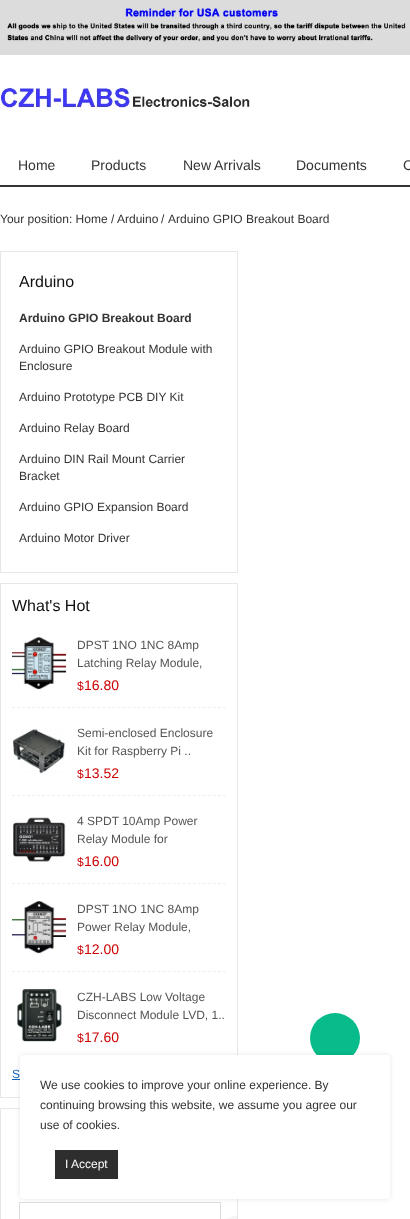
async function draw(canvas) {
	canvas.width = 410;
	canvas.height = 1219;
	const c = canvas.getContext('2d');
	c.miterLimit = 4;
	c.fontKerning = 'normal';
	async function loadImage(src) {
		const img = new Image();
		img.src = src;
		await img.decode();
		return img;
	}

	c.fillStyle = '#fff';
	c.fillRect(0, 0, 410, 1219);
	c.drawImage(await loadImage('img1.png'), 0, 0, 410, 55);
	c.drawImage(await loadImage('img2.png'), 0, 87, 250, 24);
	c.fillStyle = '#333';
	c.fillRect(0, 185, 410, 2);
	c.font = '14px Liberation Sans';
	for (const [text, x, y] of [
		['Home', 18, 170],
		['Products', 91, 170],
		['New Arrivals', 183, 170],
		['Documents', 296, 170],
		['C', 403, 170],
	]) {
		c.fillText(text, x, y);
	}
	c.font = '12px Liberation Sans';
	for (const [text, x, y] of [
		['Your position: Home', 0, 223],
		['/', 111, 223],
		['Arduino', 117, 223],
		['/', 161, 223],
		['Arduino GPIO Breakout Board', 168, 223],
	]) {
		c.fillText(text, x, y);
	}
	c.strokeStyle = '#e7e7e7';
	c.strokeRect(0.5, 251.5, 237, 321);
	c.font = '16px Liberation Sans';
	c.fillStyle = '#111';
	c.fillText('Arduino', 19, 287);
	c.font = 'bold 12px Liberation Sans';
	c.fillStyle = '#333';
	c.fillText('Arduino GPIO Breakout Board', 19, 322);
	c.font = '12px Liberation Sans';
	for (const [text, x, y] of [
		['Arduino GPIO Breakout Module with', 19, 353],
		['Enclosure', 19, 370],
		['Arduino Prototype PCB DIY Kit', 19, 401],
		['Arduino Relay Board', 19, 432],
		['Arduino DIN Rail Mount Carrier', 19, 463],
		['Bracket', 19, 480],
		['Arduino GPIO Expansion Board', 19, 511],
		['Arduino Motor Driver', 19, 542],
	]) {
		c.fillText(text, x, y);
	}
	c.strokeRect(0.5, 583.5, 237, 514);
	c.font = '16px Liberation Sans';
	c.fillStyle = '#111';
	c.fillText('What\'s Hot', 12, 611);
	c.drawImage(await loadImage('img3.png'), 12, 637, 54, 53);
	c.font = '12px Liberation Sans';
	c.fillStyle = '#555';
	c.fillText('DPST 1NO 1NC 8Amp', 77, 649);
	c.fillText('Latching Relay Module,', 77, 667);
	c.fillStyle = '#c00';
	c.fillText('$', 77, 690);
	c.font = '14px Liberation Sans';
	c.fillText('16.80', 84, 690);
	c.beginPath();
	c.moveTo(12, 707.5);
	c.lineTo(226, 707.5);
	c.strokeStyle = '#eee';
	c.setLineDash([3, 2.02]);
	c.stroke();
	c.drawImage(await loadImage('img4.png'), 13, 729, 53, 45);
	c.font = '12px Liberation Sans';
	c.fillStyle = '#555';
	c.fillText('Semi-enclosed Enclosure', 77, 737);
	c.fillText('Kit for Raspberry Pi ..', 77, 755);
	c.fillStyle = '#c00';
	c.fillText('$', 77, 778);
	c.font = '14px Liberation Sans';
	c.fillText('13.52', 84, 778);
	c.beginPath();
	c.moveTo(12, 795.5);
	c.lineTo(226, 795.5);
	c.stroke();
	c.drawImage(await loadImage('img5.png'), 13, 817, 53, 45);
	c.font = '12px Liberation Sans';
	c.fillStyle = '#555';
	c.fillText('4 SPDT 10Amp Power', 77, 825);
	c.fillText('Relay Module for', 77, 843);
	c.fillStyle = '#c00';
	c.fillText('$', 77, 866);
	c.font = '14px Liberation Sans';
	c.fillText('16.00', 84, 866);
	c.beginPath();
	c.moveTo(12, 883.5);
	c.lineTo(226, 883.5);
	c.stroke();
	c.drawImage(await loadImage('img6.png'), 12, 901, 54, 53);
	c.font = '12px Liberation Sans';
	c.fillStyle = '#555';
	c.fillText('DPST 1NO 1NC 8Amp', 77, 913);
	c.fillText('Power Relay Module,', 77, 931);
	c.fillStyle = '#c00';
	c.fillText('$', 77, 954);
	c.font = '14px Liberation Sans';
	c.fillText('12.00', 84, 954);
	c.beginPath();
	c.moveTo(12, 971.5);
	c.lineTo(226, 971.5);
	c.stroke();
	c.drawImage(await loadImage('img7.png'), 17, 989, 45, 53);
	c.font = '12px Liberation Sans';
	c.fillStyle = '#555';
	c.fillText('CZH-LABS Low Voltage', 77, 1001);
	c.fillText('Disconnect Module LVD, 1..', 77, 1019);
	c.fillStyle = '#c00';
	c.fillText('$', 77, 1042);
	c.font = '14px Liberation Sans';
	c.fillText('17.60', 84, 1042);
	c.font = '12px Liberation Sans';
	c.fillStyle = '#1363bc';
	c.fillText('S', 12, 1078);
	c.fillRect(12, 1079, 8, 1);
	c.drawImage(await loadImage('img8.png'), 226, 1215, 11, 4);
	c.strokeStyle = '#e7e7e7';
	c.setLineDash([]);
	c.strokeRect(0.5, 1108.5, 237, 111);
	c.strokeStyle = '#ddd';
	c.strokeRect(19.5, 1202.5, 201, 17);
	c.fillStyle = '#07bb8a';
	c.beginPath();
	c.arc(335, 1038, 25, 0, 2 * Math.PI);
	c.fill();
	c.fillStyle = '#0000001a';
	c.filter = 'blur(2.5px)';
	c.beginPath();
	c.roundRect(20, 1055, 370, 144, 4);
	c.fill();
	c.filter = 'none';
	c.fillStyle = '#fff';
	c.beginPath();
	c.roundRect(20, 1055, 370, 144, 4);
	c.fill();
	c.fillStyle = '#333';
	for (const [text, x, y] of [
		['We use cookies to improve your online experience. By', 40, 1089],
		['continuing browsing this website, we assume you agree our', 40, 1109],
		['use of cookies.', 40, 1129],
	]) {
		c.fillText(text, x, y);
	}
	c.fillStyle = '#2e2e2e';
	c.fillRect(55, 1150, 63, 29);
	c.fillStyle = '#fff';
	c.fillText('I Accept', 65, 1168);
}

draw(document.querySelector('canvas'));
